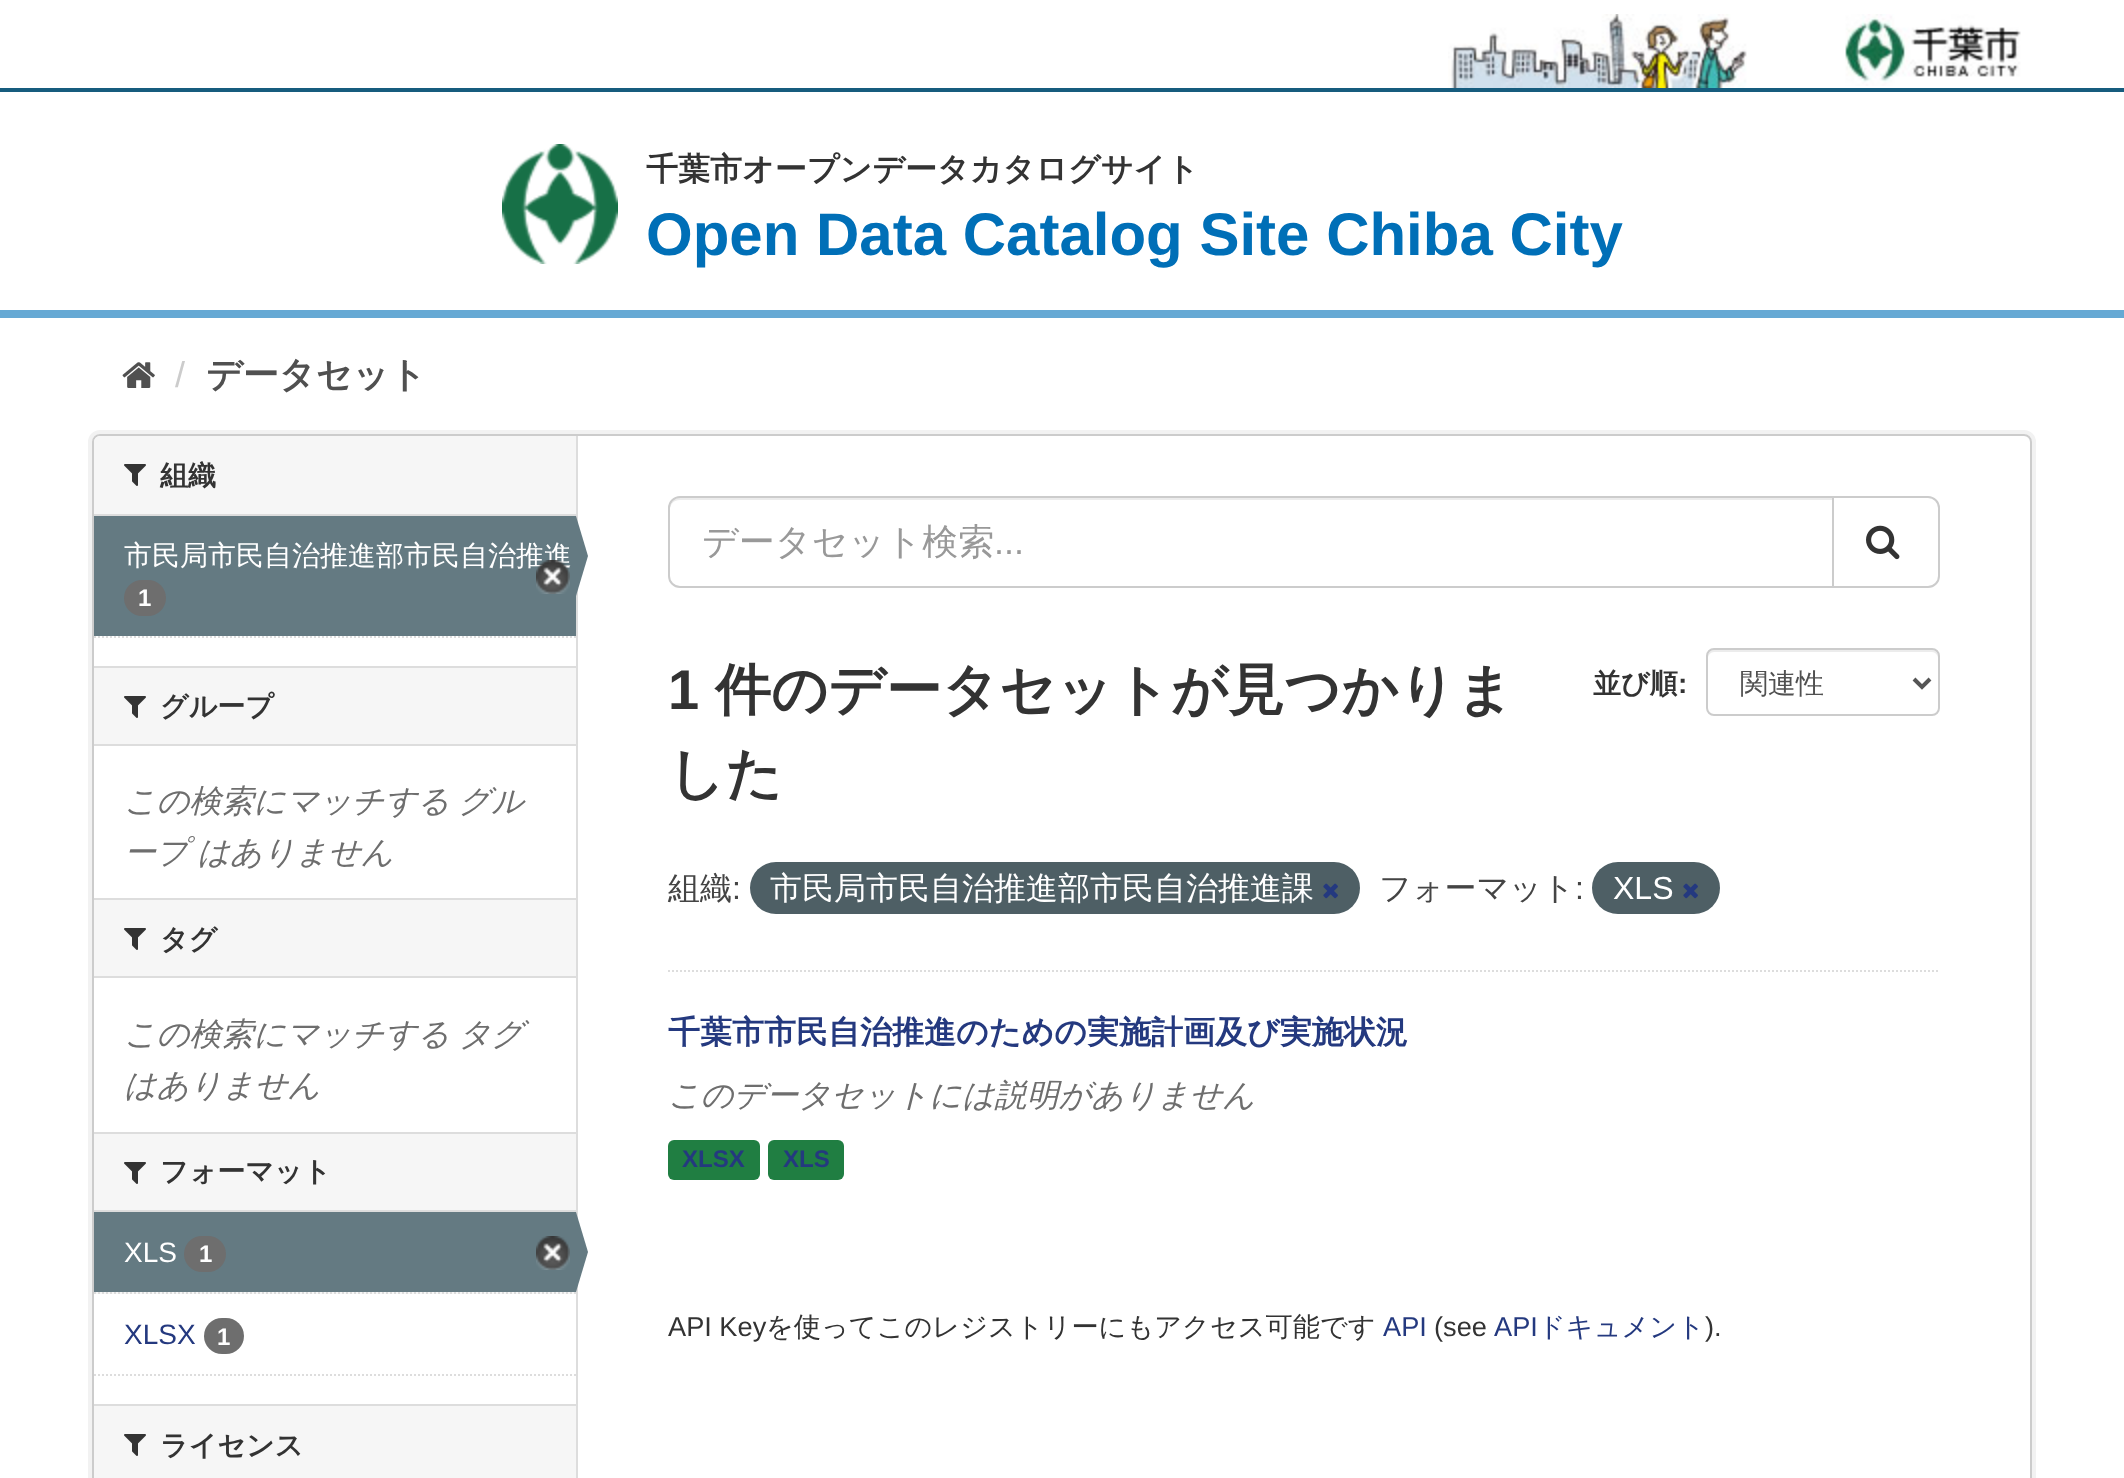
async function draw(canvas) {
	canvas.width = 2124;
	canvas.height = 1478;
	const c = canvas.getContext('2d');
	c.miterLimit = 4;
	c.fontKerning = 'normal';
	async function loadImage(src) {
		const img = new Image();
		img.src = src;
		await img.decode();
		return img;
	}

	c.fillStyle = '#fff';
	c.fillRect(0, 0, 2124, 1478);
	c.fillStyle = '#165c7e';
	c.fillRect(0, 88, 2124, 4);
	c.drawImage(await loadImage('img1.png'), 1448, 14, 299, 74);
	c.drawImage(await loadImage('img2.png'), 1845, 14, 176, 72);
	c.fillStyle = '#66a9d4';
	c.fillRect(0, 310, 2124, 8);
	c.drawImage(await loadImage('img3.png'), 502, 144, 116, 120);
	c.font = 'bold 32px WenQuanYi Zen Hei';
	c.fillStyle = '#333';
	c.fillText('千葉市オープンデータカタログサイト', 646, 180);
	c.font = 'bold 60px Liberation Sans';
	c.fillStyle = '#006fb7';
	c.fillText('Open Data Catalog Site Chiba City', 646, 255);
	c.drawImage(await loadImage('img4.png'), 122, 362, 33, 26);
	c.font = '36px Liberation Sans';
	c.fillStyle = '#ccc';
	c.fillText('/', 175, 387);
	c.font = 'bold 36px WenQuanYi Zen Hei';
	c.fillStyle = '#505050';
	c.fillText('データセット', 206, 387);
	c.beginPath();
	c.roundRect(90, 432, 1944, 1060, 10);
	c.strokeStyle = '#f2f2f2';
	c.lineWidth = 4;
	c.stroke();
	c.fillStyle = '#fff';
	c.beginPath();
	c.roundRect(93, 435, 1938, 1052, 7);
	c.fill();
	c.strokeStyle = '#ccc';
	c.lineWidth = 2;
	c.stroke();
	c.fillStyle = '#f6f6f6';
	c.beginPath();
	c.roundRect(94, 436, 482, 80, [6, 0, 0, 0]);
	c.fill();
	c.fillStyle = '#ddd';
	c.fillRect(94, 514, 482, 2);
	c.drawImage(await loadImage('img5.png'), 124, 464, 22, 22);
	c.font = 'bold 28px WenQuanYi Zen Hei';
	c.fillStyle = '#333';
	c.fillText('組織', 160, 485);
	c.fillStyle = '#647a82';
	c.fillRect(94, 516, 482, 120);
	c.font = '500 28px WenQuanYi Zen Hei';
	c.fillStyle = '#fff';
	c.fillText('市民局市民自治推進部市民自治推進', 124, 565);
	c.fillStyle = '#ddd';
	c.fillRect(576, 436, 2, 1042);
	c.fillStyle = '#647a82';
	c.beginPath();
	c.moveTo(576, 596);
	c.lineTo(576, 516);
	c.lineTo(588, 556);
	c.closePath();
	c.fill();
	c.drawImage(await loadImage('img6.png'), 536, 560, 34, 34);
	c.fillStyle = '#6e6e6e';
	c.beginPath();
	c.roundRect(124, 580, 42, 36, 18);
	c.fill();
	c.font = 'bold 24px Liberation Sans';
	c.fillStyle = '#fff';
	c.fillText('1', 138, 606);
	c.beginPath();
	c.moveTo(94, 637);
	c.lineTo(576, 637);
	c.strokeStyle = '#ddd';
	c.setLineDash([2, 2]);
	c.stroke();
	for (const [x, y, w, h, color] of [
		[94, 668, 482, 76, '#f6f6f6'],
		[94, 666, 482, 2, '#ddd'],
		[94, 744, 482, 2, '#ddd'],
	]) {
		c.fillStyle = color;
		c.fillRect(x, y, w, h);
	}
	c.drawImage(await loadImage('img5.png'), 124, 696, 22, 22);
	c.font = 'bold 28px WenQuanYi Zen Hei';
	c.fillStyle = '#333';
	c.fillText('グループ', 160, 716);
	c.wordSpacing = '-1px';
	c.font = 'italic 500 32px WenQuanYi Zen Hei';
	c.fillStyle = '#6e6e6e';
	c.fillText('この検索にマッチする グル', 124, 812);
	c.fillText('ープ はありません', 124, 863);
	for (const [x, y, w, h, color] of [
		[94, 900, 482, 76, '#f6f6f6'],
		[94, 898, 482, 2, '#ddd'],
		[94, 976, 482, 2, '#ddd'],
	]) {
		c.fillStyle = color;
		c.fillRect(x, y, w, h);
	}
	c.drawImage(await loadImage('img5.png'), 124, 928, 22, 22);
	c.wordSpacing = '0px';
	c.font = 'bold 28px WenQuanYi Zen Hei';
	c.fillStyle = '#333';
	c.fillText('タグ', 160, 949);
	c.wordSpacing = '-1px';
	c.font = 'italic 500 32px WenQuanYi Zen Hei';
	c.fillStyle = '#6e6e6e';
	c.fillText('この検索にマッチする タグ', 124, 1045);
	c.wordSpacing = '0px';
	c.fillText('はありません', 124, 1096);
	for (const [x, y, w, h, color] of [
		[94, 1134, 482, 76, '#f6f6f6'],
		[94, 1132, 482, 2, '#ddd'],
		[94, 1210, 482, 2, '#ddd'],
	]) {
		c.fillStyle = color;
		c.fillRect(x, y, w, h);
	}
	c.drawImage(await loadImage('img5.png'), 124, 1162, 22, 22);
	c.font = 'bold 28px WenQuanYi Zen Hei';
	c.fillStyle = '#333';
	c.fillText('フォーマット', 160, 1181);
	c.fillStyle = '#f6f6f6';
	c.fillRect(96, 1292, 478, 2);
	c.beginPath();
	c.moveTo(94, 1293);
	c.lineTo(576, 1293);
	c.stroke();
	c.fillStyle = '#647a82';
	c.fillRect(94, 1212, 482, 80);
	c.font = '28px Liberation Sans';
	c.fillStyle = '#fff';
	c.fillText('XLS', 124, 1262);
	c.fillStyle = '#6e6e6e';
	c.beginPath();
	c.roundRect(184, 1236, 42, 36, 18);
	c.fill();
	c.font = 'bold 24px Liberation Sans';
	c.fillStyle = '#fff';
	c.fillText('1', 199, 1262);
	c.drawImage(await loadImage('img7.png'), 536, 1236, 34, 34);
	c.fillStyle = '#647a82';
	c.beginPath();
	c.moveTo(576, 1292);
	c.lineTo(576, 1212);
	c.lineTo(588, 1252);
	c.closePath();
	c.fill();
	c.font = '28px Liberation Sans';
	c.fillStyle = '#24397f';
	c.fillText('XLSX', 124, 1344);
	c.fillStyle = '#6e6e6e';
	c.beginPath();
	c.roundRect(204, 1318, 40, 36, 18);
	c.fill();
	c.font = 'bold 24px Liberation Sans';
	c.fillStyle = '#fff';
	c.fillText('1', 217, 1345);
	c.beginPath();
	c.moveTo(94, 1375);
	c.lineTo(576, 1375);
	c.stroke();
	c.fillStyle = '#f6f6f6';
	c.fillRect(94, 1406, 482, 72);
	c.fillStyle = '#ddd';
	c.fillRect(94, 1404, 482, 2);
	c.drawImage(await loadImage('img5.png'), 124, 1434, 22, 22);
	c.font = 'bold 28px WenQuanYi Zen Hei';
	c.fillStyle = '#333';
	c.fillText('ライセンス', 160, 1455);
	c.beginPath();
	c.moveTo(668, 971);
	c.lineTo(1940, 971);
	c.stroke();
	c.fillStyle = '#ececec';
	c.beginPath();
	c.moveTo(680, 500);
	c.lineTo(1832, 500);
	c.lineTo(1832, 498);
	c.lineTo(680, 498);
	c.bezierCurveTo(673, 498, 670, 504, 670, 510);
	c.bezierCurveTo(670, 504, 674, 500, 680, 500);
	c.closePath();
	c.fill();
	c.beginPath();
	c.roundRect(669, 497, 1164, 90, [11, 0, 0, 11]);
	c.strokeStyle = '#ccc';
	c.setLineDash([]);
	c.stroke();
	c.font = '500 36px WenQuanYi Zen Hei';
	c.fillStyle = '#999';
	c.fillText('データセット検索', 702, 554);
	c.font = '36px Liberation Sans';
	c.fillText('...', 994, 554);
	c.fillStyle = '#fff';
	c.beginPath();
	c.roundRect(1833, 497, 106, 90, [0, 11, 11, 0]);
	c.fill();
	c.stroke();
	c.drawImage(await loadImage('img8.png'), 1866, 525, 34, 35);
	c.font = 'bold 56px Liberation Sans';
	c.fillStyle = '#333';
	c.fillText('1', 668, 709);
	c.font = 'bold 56px WenQuanYi Zen Hei';
	c.fillText('件のデータセットが見つかりま', 715, 709);
	c.fillText('した', 668, 793);
	c.font = 'bold 28px WenQuanYi Zen Hei';
	c.fillText('並び順', 1593, 693);
	c.font = 'bold 28px Liberation Sans';
	c.fillText(':', 1678, 693);
	c.fillStyle = '#ececec';
	c.beginPath();
	c.moveTo(1714, 652);
	c.lineTo(1932, 652);
	c.bezierCurveTo(1935, 652, 1938, 655, 1938, 658);
	c.lineTo(1938, 656);
	c.bezierCurveTo(1938, 653, 1935, 650, 1932, 650);
	c.lineTo(1714, 650);
	c.bezierCurveTo(1711, 650, 1708, 653, 1708, 656);
	c.lineTo(1708, 658);
	c.bezierCurveTo(1708, 655, 1711, 652, 1714, 652);
	c.closePath();
	c.fill();
	c.beginPath();
	c.roundRect(1707, 649, 232, 66, 7);
	c.stroke();
	c.beginPath();
	c.moveTo(1914, 679);
	c.lineTo(1922, 687);
	c.lineTo(1930, 679);
	c.strokeStyle = '#555';
	c.lineWidth = 4;
	c.stroke();
	c.font = '500 28px WenQuanYi Zen Hei';
	c.fillStyle = '#505050';
	c.fillText('関連性', 1740, 693);
	c.font = '500 32px WenQuanYi Zen Hei';
	c.fillStyle = '#444';
	c.fillText('組織', 668, 899);
	c.font = '32px Liberation Sans';
	c.fillText(':', 732, 899);
	c.fillStyle = '#4e5f65';
	c.beginPath();
	c.roundRect(750, 862, 610, 52, 26);
	c.fill();
	c.font = '500 32px WenQuanYi Zen Hei';
	c.fillStyle = '#fff';
	c.fillText('市民局市民自治推進部市民自治推進課', 770, 899);
	c.drawImage(await loadImage('img9.png'), 1323, 883, 15, 16);
	c.fillStyle = '#444';
	c.fillText('フォーマット', 1379, 899);
	c.font = '32px Liberation Sans';
	c.fillText(':', 1575, 899);
	c.fillStyle = '#4e5f65';
	c.beginPath();
	c.roundRect(1592, 862, 128, 52, 26);
	c.fill();
	c.fillStyle = '#fff';
	c.fillText('XLS', 1613, 899);
	c.drawImage(await loadImage('img9.png'), 1683, 883, 15, 16);
	c.font = 'bold 32px WenQuanYi Zen Hei';
	c.fillStyle = '#24397f';
	c.fillText('千葉市市民自治推進のための実施計画及び実施状況', 668, 1043);
	c.font = 'italic 500 32px WenQuanYi Zen Hei';
	c.fillStyle = '#6e6e6e';
	c.fillText('このデータセットには説明がありません', 668, 1106);
	c.fillStyle = '#207e42';
	c.beginPath();
	c.roundRect(668, 1140, 92, 40, 6);
	c.fill();
	c.font = 'bold 24px Liberation Sans';
	c.fillStyle = '#24397f';
	c.fillText('XLSX', 682, 1167);
	c.fillStyle = '#207e42';
	c.beginPath();
	c.roundRect(768, 1140, 76, 40, 6);
	c.fill();
	c.fillStyle = '#24397f';
	c.fillText('XLS', 783, 1167);
	c.font = '27.2px Liberation Sans';
	c.fillStyle = '#333';
	c.fillText('API Key', 668, 1336);
	c.font = '500 27.2px WenQuanYi Zen Hei';
	c.fillText('を使ってこのレジストリーにもアクセス可能です', 766, 1336);
	c.font = '27.2px Liberation Sans';
	c.fillStyle = '#24397f';
	c.fillText('API', 1383, 1336);
	c.fillStyle = '#333';
	c.fillText('(see', 1434, 1336);
	c.fillStyle = '#24397f';
	c.fillText('API', 1494, 1336);
	c.font = '500 27.2px WenQuanYi Zen Hei';
	c.fillText('ドキュメント', 1538, 1336);
	c.font = '27.2px Liberation Sans';
	c.fillStyle = '#333';
	c.fillText(').', 1705, 1336);
}

draw(document.querySelector('canvas'));
